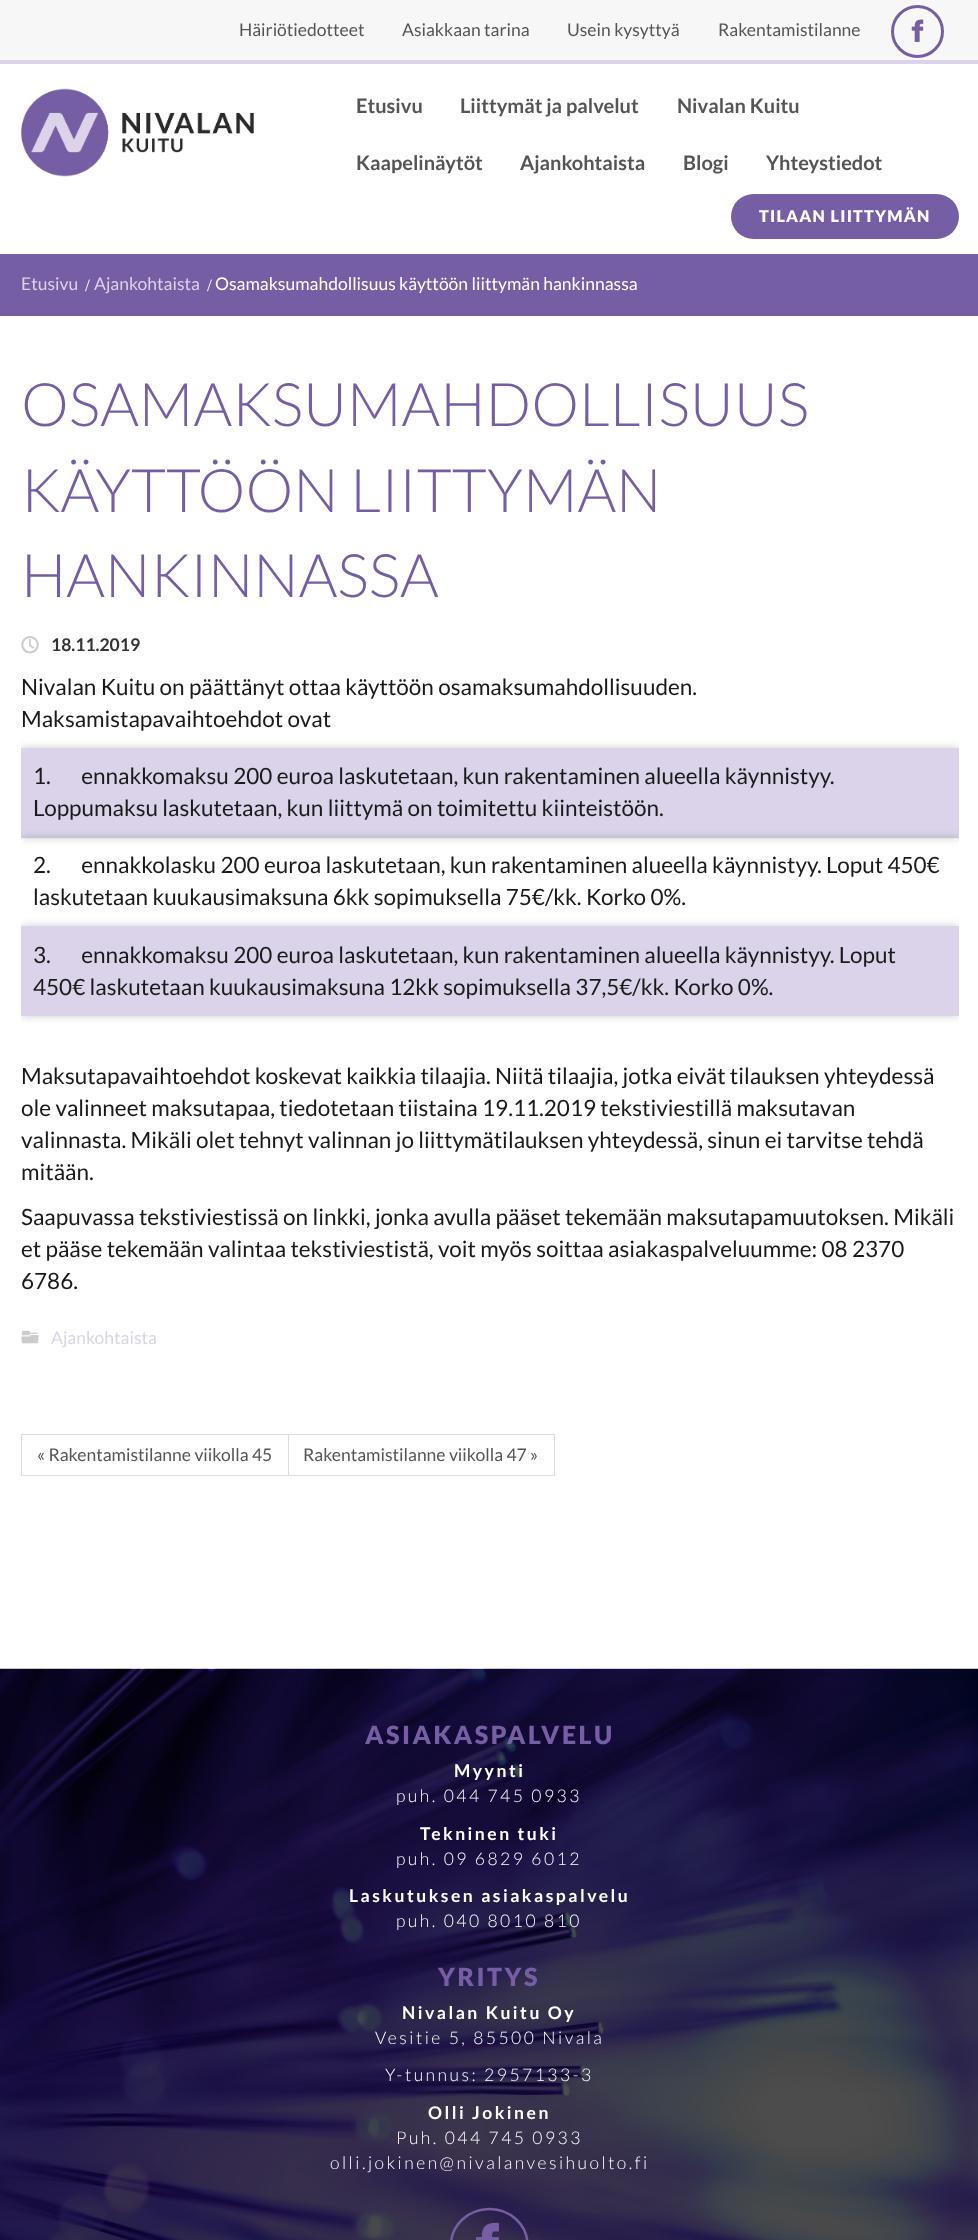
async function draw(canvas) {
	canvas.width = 978;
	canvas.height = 2240;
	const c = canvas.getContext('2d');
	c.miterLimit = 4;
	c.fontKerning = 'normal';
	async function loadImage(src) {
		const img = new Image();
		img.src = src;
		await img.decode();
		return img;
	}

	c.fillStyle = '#fff';
	c.fillRect(0, 0, 978, 2240);
	c.fillStyle = '#f7f7f7';
	c.fillRect(0, 0, 978, 60);
	c.fillStyle = '#dad3ea';
	c.fillRect(0, 60, 978, 4);
	c.font = '17.5px Lato';
	c.fillStyle = '#555';
	for (const [text, x, y] of [
		['Häiriötiedotteet', 239, 36],
		['Asiakkaan tarina', 402, 36],
		['Usein kysyttyä', 567, 36],
		['Rakentamistilanne', 718, 36],
	]) {
		c.fillText(text, x, y);
	}
	c.beginPath();
	c.arc(917.5, 31.5, 25, 0, 2 * Math.PI);
	c.strokeStyle = '#765ea4';
	c.lineWidth = 3;
	c.stroke();
	c.drawImage(await loadImage('img1.png'), 911, 19, 13, 23);
	c.drawImage(await loadImage('img2.png'), 21, 88, 233, 89);
	c.font = 'bold 20px Lato';
	for (const [text, x, y] of [
		['Etusivu', 356, 113],
		['Liittymät ja palvelut', 460, 113],
		['Nivalan Kuitu', 677, 113],
		['Kaapelinäytöt', 356, 170],
		['Ajankohtaista', 520, 170],
		['Blogi', 683, 170],
		['Yhteystiedot', 766, 170],
	]) {
		c.fillText(text, x, y);
	}
	c.fillStyle = '#765ea4';
	c.beginPath();
	c.roundRect(731, 194, 228, 45, 22.5);
	c.fill();
	c.letterSpacing = '1.25px';
	c.font = '900 16.25px Lato';
	c.fillStyle = '#fff';
	c.fillText('TILAAN LIITTYMÄN', 759, 222);
	c.fillStyle = '#765ea4';
	c.fillRect(0, 254, 978, 62);
	c.letterSpacing = '0px';
	c.font = '17.5px Lato';
	c.fillStyle = '#dad3ea';
	c.fillText('Etusivu', 21, 290);
	c.font = '17.5px Liberation Serif';
	c.fillStyle = '#fff';
	c.fillText('/', 85, 291);
	c.font = '17.5px Lato';
	c.fillStyle = '#dad3ea';
	c.fillText('Ajankohtaista', 94, 290);
	c.font = '17.5px Liberation Serif';
	c.fillStyle = '#fff';
	c.fillText('/', 207, 291);
	c.font = '17.5px Lato';
	c.fillText('Osamaksumahdollisuus käyttöön liittymän hankinnassa', 215, 290);
	c.font = '300 60px Lato';
	c.fillStyle = '#765ea4';
	for (const [text, x, y] of [
		['OSAMAKSUMAHDOLLISUUS', 21, 426],
		['KÄYTTÖÖN LIITTYMÄN', 21, 512],
		['HANKINNASSA', 21, 597],
	]) {
		c.fillText(text, x, y);
	}
	c.drawImage(await loadImage('img3.png'), 21, 636, 18, 18);
	c.font = 'bold 17.5px Lato';
	c.fillStyle = '#333';
	c.fillText('18.11.2019', 51, 651);
	c.font = '22.5px Lato';
	c.fillStyle = '#1a1a1a';
	c.fillText('Nivalan Kuitu on päättänyt ottaa käyttöön osamaksumahdollisuuden.', 21, 695);
	c.fillText('Maksamistapavaihtoehdot ovat', 21, 727);
	c.save();
	c.beginPath();
	c.rect(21, 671, 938, 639);
	c.clip();
	c.fillStyle = '#33333340';
	c.filter = 'blur(4px)';
	c.beginPath();
	c.rect(21, 748, 938, 90);
	c.fill();
	c.filter = 'none';
	c.restore();
	c.fillStyle = '#dad3ea';
	c.fillRect(21, 748, 938, 90);
	c.fillStyle = '#1a1a1a';
	c.fillText('1.       ennakkomaksu 200 euroa laskutetaan, kun rakentaminen alueella käynnistyy.', 33, 784);
	c.fillText('Loppumaksu laskutetaan, kun liittymä on toimitettu kiinteistöön.', 33, 816);
	c.save();
	c.beginPath();
	c.rect(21, 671, 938, 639);
	c.clip();
	c.beginPath();
	c.moveTo(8, 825);
	c.lineTo(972, 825);
	c.lineTo(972, 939);
	c.lineTo(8, 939);
	c.closePath();
	c.moveTo(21, 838);
	c.lineTo(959, 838);
	c.lineTo(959, 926);
	c.lineTo(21, 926);
	c.closePath();
	c.clip('evenodd');
	c.fillStyle = '#33333340';
	c.filter = 'blur(4px)';
	c.beginPath();
	c.rect(21, 838, 938, 88);
	c.fill();
	c.filter = 'none';
	c.restore();
	c.fillText('2.       ennakkolasku 200 euroa laskutetaan, kun rakentaminen alueella käynnistyy. Loput 450€', 33, 873);
	c.fillText('laskutetaan kuukausimaksuna 6kk sopimuksella 75€/kk. Korko 0%.', 33, 905);
	c.save();
	c.beginPath();
	c.rect(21, 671, 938, 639);
	c.clip();
	c.fillStyle = '#33333340';
	c.filter = 'blur(4px)';
	c.beginPath();
	c.rect(21, 926, 938, 90);
	c.fill();
	c.filter = 'none';
	c.restore();
	c.fillStyle = '#dad3ea';
	c.fillRect(21, 926, 938, 90);
	c.fillStyle = '#1a1a1a';
	for (const [text, x, y] of [
		['3.       ennakkomaksu 200 euroa laskutetaan, kun rakentaminen alueella käynnistyy. Loput', 33, 963],
		['450€ laskutetaan kuukausimaksuna 12kk sopimuksella 37,5€/kk. Korko 0%.', 33, 995],
		['Maksutapavaihtoehdot koskevat kaikkia tilaajia. Niitä tilaajia, jotka eivät tilauksen yhteydessä', 21, 1084],
		['ole valinneet maksutapaa, tiedotetaan tiistaina 19.11.2019 tekstiviestillä maksutavan', 21, 1116],
		['valinnasta. Mikäli olet tehnyt valinnan jo liittymätilauksen yhteydessä, sinun ei tarvitse tehdä', 21, 1148],
		['mitään.', 21, 1180],
		['Saapuvassa tekstiviestissä on linkki, jonka avulla pääset tekemään maksutapamuutoksen. Mikäli', 21, 1225],
		['et pääse tekemään valintaa tekstiviestistä, voit myös soittaa asiakaspalveluumme: 08 2370', 21, 1257],
		['6786.', 21, 1289],
	]) {
		c.fillText(text, x, y);
	}
	c.drawImage(await loadImage('img4.png'), 21, 1330, 18, 14);
	c.font = '17.5px Lato';
	c.fillStyle = '#dad3ea';
	c.fillText('Ajankohtaista', 51, 1344);
	c.strokeStyle = '#ddd';
	c.lineWidth = 1;
	c.strokeRect(21.5, 1434.5, 267, 41);
	c.fillStyle = '#555';
	c.fillText('« Rakentamistilanne viikolla 45', 37, 1461);
	c.strokeRect(288.5, 1434.5, 266, 41);
	c.fillText('Rakentamistilanne viikolla 47 »', 303, 1461);
	c.drawImage(await loadImage('img5.png'), 0, 1668, 978, 572);
	c.letterSpacing = '2.5px';
	c.font = '900 25px Lato';
	c.fillStyle = '#765ea4';
	c.fillText('ASIAKASPALVELU', 365, 1744);
	c.font = 'bold 17.5px Lato';
	c.fillStyle = '#fff';
	c.fillText('Myynti', 454, 1777);
	c.font = '300 17.5px Lato';
	c.fillText('puh. 044 745 0933', 396, 1802);
	c.font = 'bold 17.5px Lato';
	c.fillText('Tekninen tuki', 420, 1840);
	c.font = '300 17.5px Lato';
	c.fillText('puh. 09 6829 6012', 396, 1865);
	c.font = 'bold 17.5px Lato';
	c.fillText('Laskutuksen asiakaspalvelu', 349, 1902);
	c.font = '300 17.5px Lato';
	c.fillText('puh. 040 8010 810', 396, 1927);
	c.font = '900 25px Lato';
	c.fillStyle = '#765ea4';
	c.fillText('YRITYS', 438, 1986);
	c.font = 'bold 17.5px Lato';
	c.fillStyle = '#fff';
	c.fillText('Nivalan Kuitu Oy', 402, 2019);
	c.font = '300 17.5px Lato';
	c.fillText('Vesitie 5, 85500 Nivala', 375, 2044);
	c.fillText('Y-tunnus: 2957133-3', 385, 2081);
	c.font = 'bold 17.5px Lato';
	c.fillText('Olli Jokinen', 428, 2119);
	c.font = '300 17.5px Lato';
	c.fillText('Puh. 044 745 0933', 396, 2144);
	c.fillText('olli.jokinen@nivalanvesihuolto.fi', 330, 2169);
	c.beginPath();
	c.moveTo(489.5, 2209);
	c.bezierCurveTo(510.5, 2209, 527.5, 2225, 527.5, 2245);
	c.bezierCurveTo(527.5, 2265, 510.5, 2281, 489.5, 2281);
	c.bezierCurveTo(468.5, 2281, 451, 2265, 451, 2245);
	c.bezierCurveTo(451, 2225, 468.5, 2209, 489.5, 2209);
	c.closePath();
	c.strokeStyle = '#765ea4';
	c.lineWidth = 2.5;
	c.stroke();
	c.drawImage(await loadImage('img6.png'), 476, 2222, 23, 18);
}

draw(document.querySelector('canvas'));
